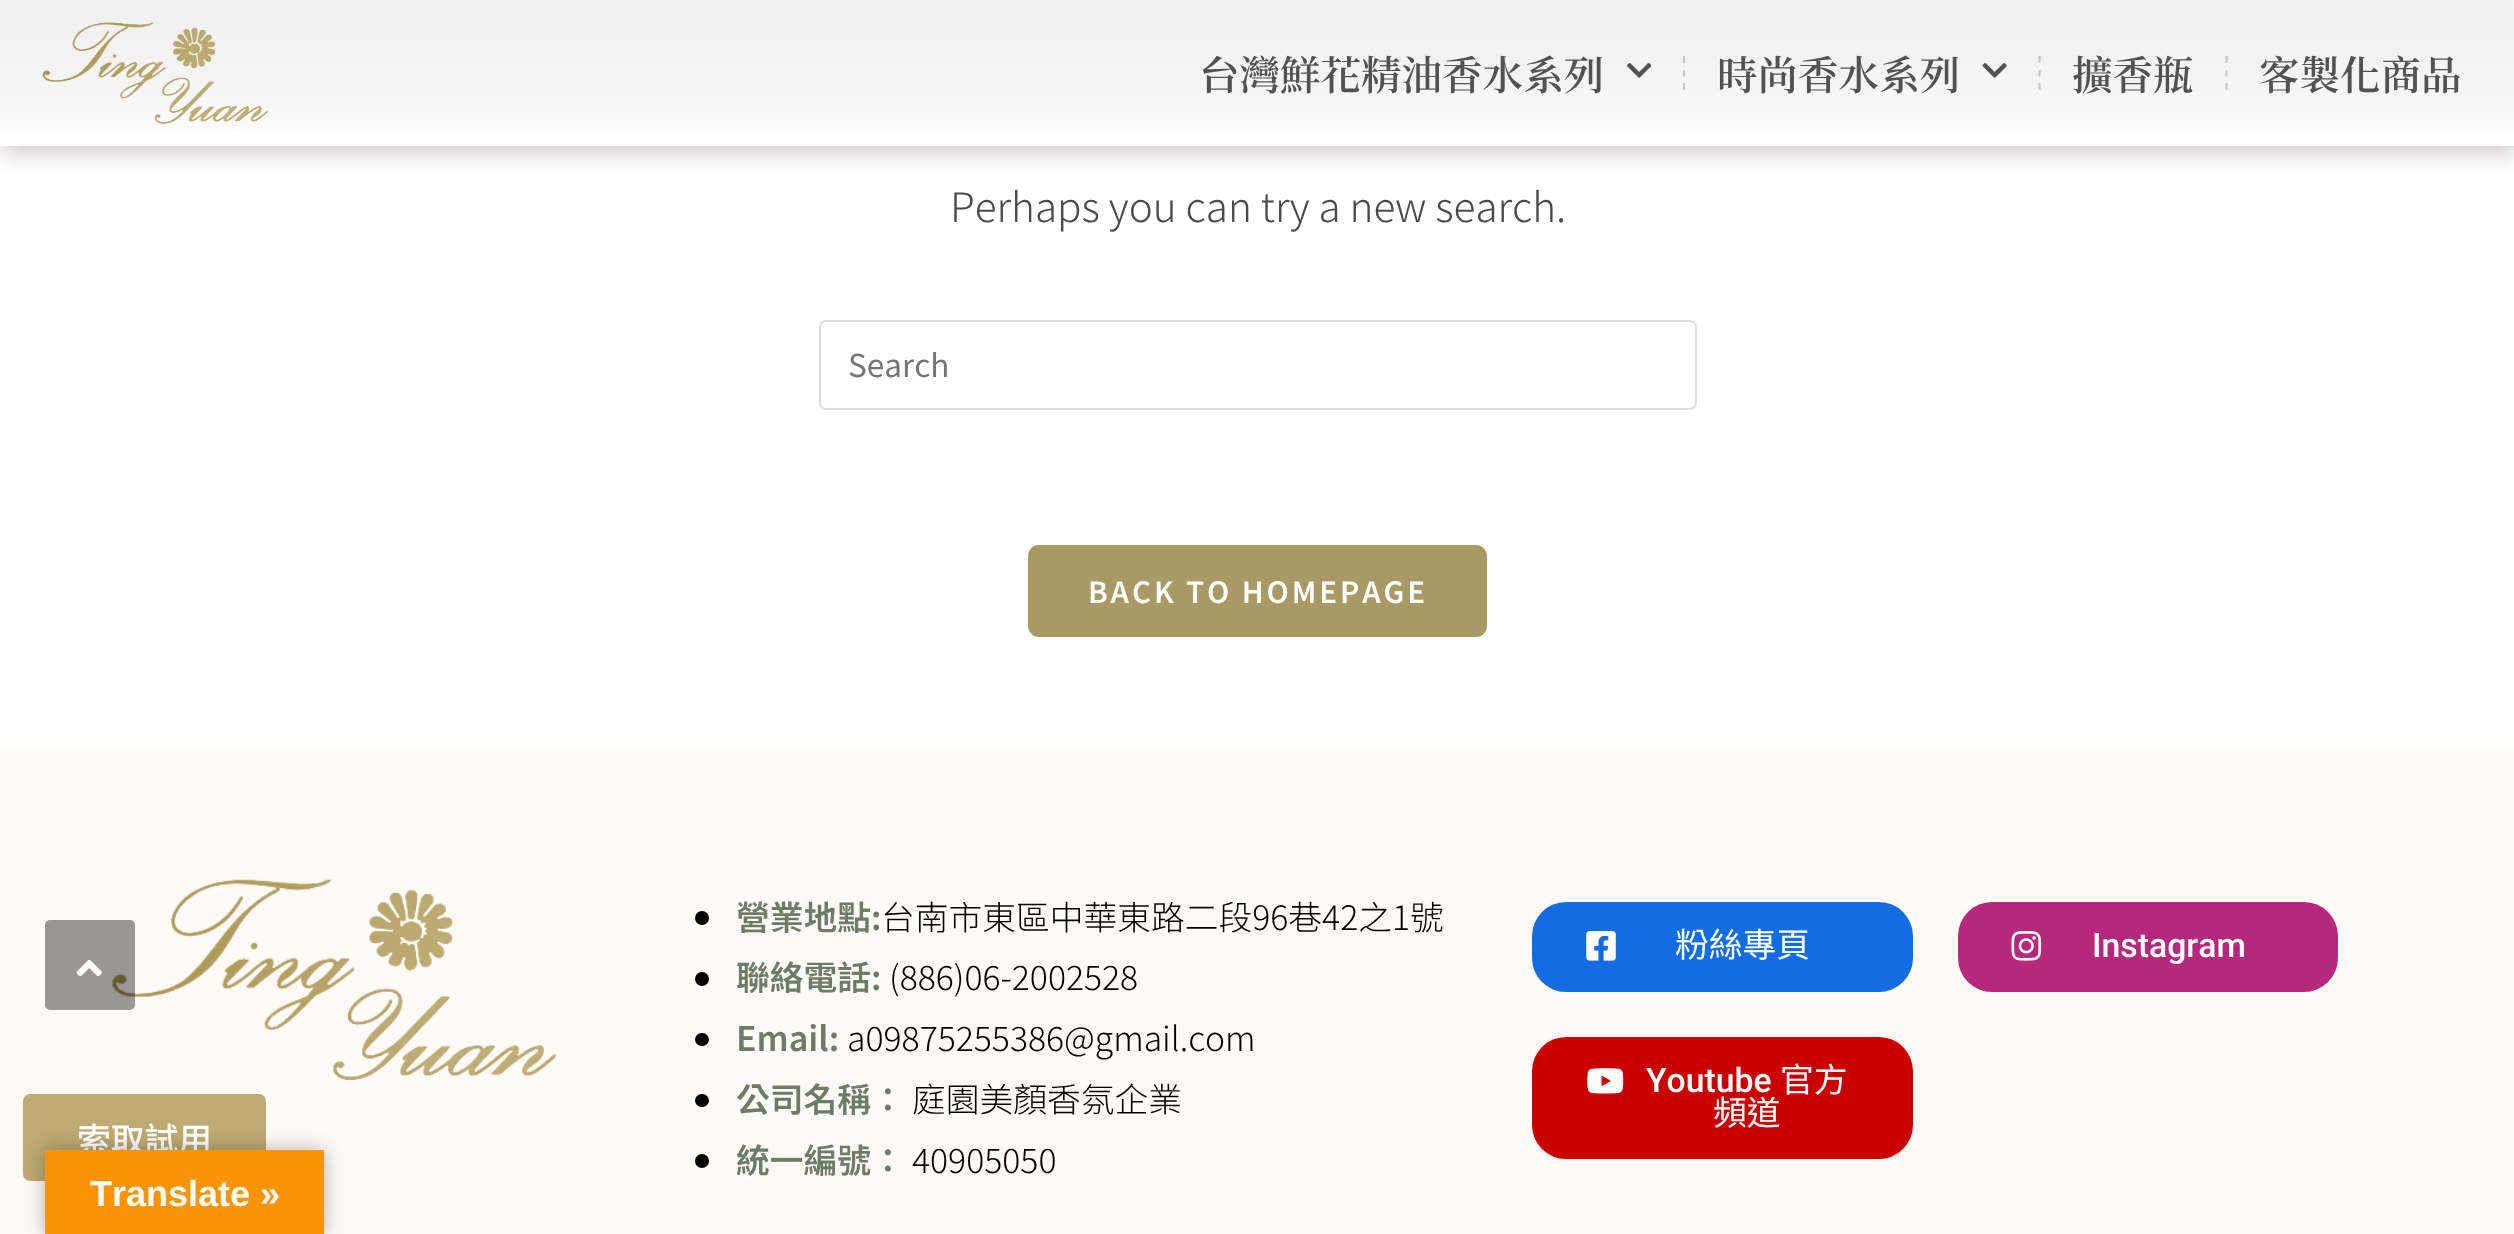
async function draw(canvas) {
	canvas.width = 2514;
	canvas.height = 1234;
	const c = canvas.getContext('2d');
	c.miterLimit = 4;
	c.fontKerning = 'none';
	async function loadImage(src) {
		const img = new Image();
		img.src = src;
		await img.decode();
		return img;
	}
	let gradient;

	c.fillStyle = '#fff';
	c.fillRect(0, 0, 2514, 1234);
	c.save();
	c.beginPath();
	c.rect(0, 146, 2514, 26);
	c.clip();
	c.fillStyle = '#9e929280';
	c.filter = 'blur(11px)';
	c.beginPath();
	c.rect(2, 7, 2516, 146);
	c.fill();
	c.filter = 'none';
	c.restore();
	gradient = c.createLinearGradient(1258, 0, 1258, 146);
	gradient.addColorStop(0, '#dedee069');
	gradient.addColorStop(1, '#fff');
	c.fillStyle = gradient;
	c.fillRect(0, 0, 2514, 134);
	c.drawImage(await loadImage('img1.png'), 42, 22, 226, 102);
	c.font = '600 40.5px Noto Serif TC';
	c.fillStyle = '#525252';
	c.fillText('台灣鮮花精油香水系列', 1199, 90);
	c.drawImage(await loadImage('img2.png'), 1627, 63, 25, 15);
	c.beginPath();
	c.moveTo(1684, 56);
	c.lineTo(1684, 63);
	c.moveTo(1684, 70);
	c.lineTo(1684, 76.5);
	c.moveTo(1684, 83);
	c.lineTo(1684, 90);
	c.strokeStyle = '#c9c9c9';
	c.lineWidth = 2.2;
	c.stroke();
	c.fillText('時尚香水系列', 1717, 90);
	c.drawImage(await loadImage('img3.png'), 1982, 63, 25, 15);
	c.beginPath();
	c.moveTo(2039.5, 56);
	c.lineTo(2039.5, 63);
	c.moveTo(2039.5, 70);
	c.lineTo(2039.5, 76.5);
	c.moveTo(2039.5, 83);
	c.lineTo(2039.5, 90);
	c.stroke();
	c.fillText('擴香瓶', 2072, 90);
	c.beginPath();
	c.moveTo(2226.5, 56);
	c.lineTo(2226.5, 63);
	c.moveTo(2226.5, 70);
	c.lineTo(2226.5, 76.5);
	c.moveTo(2226.5, 83);
	c.lineTo(2226.5, 90);
	c.stroke();
	c.fillText('客製化商品', 2259, 90);
	c.font = '300 40.5px Noto Sans TC';
	c.fillStyle = '#4a4a4a';
	c.fillText('Perhaps you can try a new search.', 950, 222);
	c.beginPath();
	c.roundRect(820, 321, 876, 88, 6);
	c.strokeStyle = '#ddd';
	c.lineWidth = 2;
	c.stroke();
	c.font = '31.5px Noto Sans TC';
	c.fillStyle = '#757575';
	c.fillText('Search', 848, 377);
	c.fillStyle = '#a89965';
	c.beginPath();
	c.roundRect(1028, 545, 459, 92, 11);
	c.fill();
	c.letterSpacing = '2.9px';
	c.font = '600 29.25px Noto Sans TC';
	c.fillStyle = '#fff';
	c.fillText('BACK TO HOMEPAGE', 1088, 603);
	c.fillStyle = '#fffaf5';
	c.fillRect(0, 749, 2514, 485);
	c.fillStyle = '#000';
	c.beginPath();
	c.arc(702, 918, 7, 0, 2 * Math.PI);
	c.fill();
	c.letterSpacing = '0px';
	c.font = '600 33.75px Noto Sans TC';
	c.fillStyle = '#6c7c69';
	c.fillText('營業地點:', 736, 930);
	c.font = '300 33.75px Noto Sans TC';
	c.fillStyle = '#000';
	c.fillText('台南市東區中華東路二段96巷42之1號', 881, 930);
	c.beginPath();
	c.arc(702, 979, 7, 0, 2 * Math.PI);
	c.fill();
	c.font = '600 33.75px Noto Sans TC';
	c.fillStyle = '#6c7c69';
	c.fillText('聯絡電話:', 736, 990);
	c.font = '300 33.75px Noto Sans TC';
	c.fillStyle = '#000';
	c.fillText('(886)06-2002528', 889, 990);
	c.beginPath();
	c.roundRect(695, 1033, 14, 13, 6.5);
	c.fill();
	c.font = '600 33.75px Noto Sans TC';
	c.fillStyle = '#6c7c69';
	c.fillText('Email:', 736, 1051);
	c.font = '300 33.75px Noto Sans TC';
	c.fillStyle = '#000';
	c.fillText('a09875255386@gmail.com', 847, 1051);
	c.beginPath();
	c.roundRect(695, 1094, 14, 13, 6.5);
	c.fill();
	c.font = '600 33.75px Noto Sans TC';
	c.fillStyle = '#6c7c69';
	c.fillText('公司名稱：', 736, 1112);
	c.font = '300 33.75px Noto Sans TC';
	c.fillStyle = '#000';
	c.fillText('庭園美顏香氛企業', 912, 1112);
	c.beginPath();
	c.arc(702, 1161, 7, 0, 2 * Math.PI);
	c.fill();
	c.font = '600 33.75px Noto Sans TC';
	c.fillStyle = '#6c7c69';
	c.fillText('統一編號：', 736, 1173);
	c.font = '300 33.75px Noto Sans TC';
	c.fillStyle = '#000';
	c.fillText('40905050', 912, 1173);
	c.fillStyle = '#136ce1';
	c.beginPath();
	c.roundRect(1532, 902, 381, 90, 34);
	c.fill();
	c.drawImage(await loadImage('img4.png'), 1586, 931, 30, 30);
	c.font = '33.75px Noto Sans CJK TC';
	c.fillStyle = '#fff';
	c.fillText('粉絲專頁', 1675, 957);
	c.fillStyle = '#b5287c';
	c.beginPath();
	c.roundRect(1958, 902, 380, 90, 34);
	c.fill();
	c.drawImage(await loadImage('img5.png'), 2011, 931, 31, 30);
	c.font = '500 33.75px Roboto';
	c.fillStyle = '#fff';
	c.fillText('Instagram', 2092, 957);
	c.fillStyle = '#ca0000';
	c.beginPath();
	c.roundRect(1532, 1037, 381, 122, 34);
	c.fill();
	c.drawImage(await loadImage('img6.png'), 1587, 1068, 37, 26);
	c.fillStyle = '#fff';
	c.fillText('Youtube', 1646, 1092);
	c.font = '33.75px Noto Sans CJK TC';
	c.fillText('官方', 1780, 1092);
	c.fillText('頻道', 1713, 1125);
	c.drawImage(await loadImage('img7.png'), 112, 879, 444, 201);
	c.fillStyle = '#bdab72';
	c.beginPath();
	c.roundRect(23, 1094, 243, 87, 7);
	c.fill();
	c.font = '500 33.75px Noto Sans TC';
	c.fillStyle = '#fff';
	c.fillText('索取試用', 77, 1152);
	c.fillStyle = '#00000066';
	c.beginPath();
	c.roundRect(45, 920, 90, 90, 5);
	c.fill();
	c.drawImage(await loadImage('img8.png'), 76, 960, 26, 17);
	c.fillStyle = '#0000004d';
	c.filter = 'blur(10px)';
	c.beginPath();
	c.rect(45, 1150, 279, 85);
	c.fill();
	c.filter = 'none';
	c.fillStyle = '#f89406';
	c.fillRect(45, 1150, 279, 84);
	c.font = 'bold 36px Liberation Sans';
	c.fillStyle = '#fff';
	c.fillText('Translate »', 90, 1206);
}

draw(document.querySelector('canvas'));
